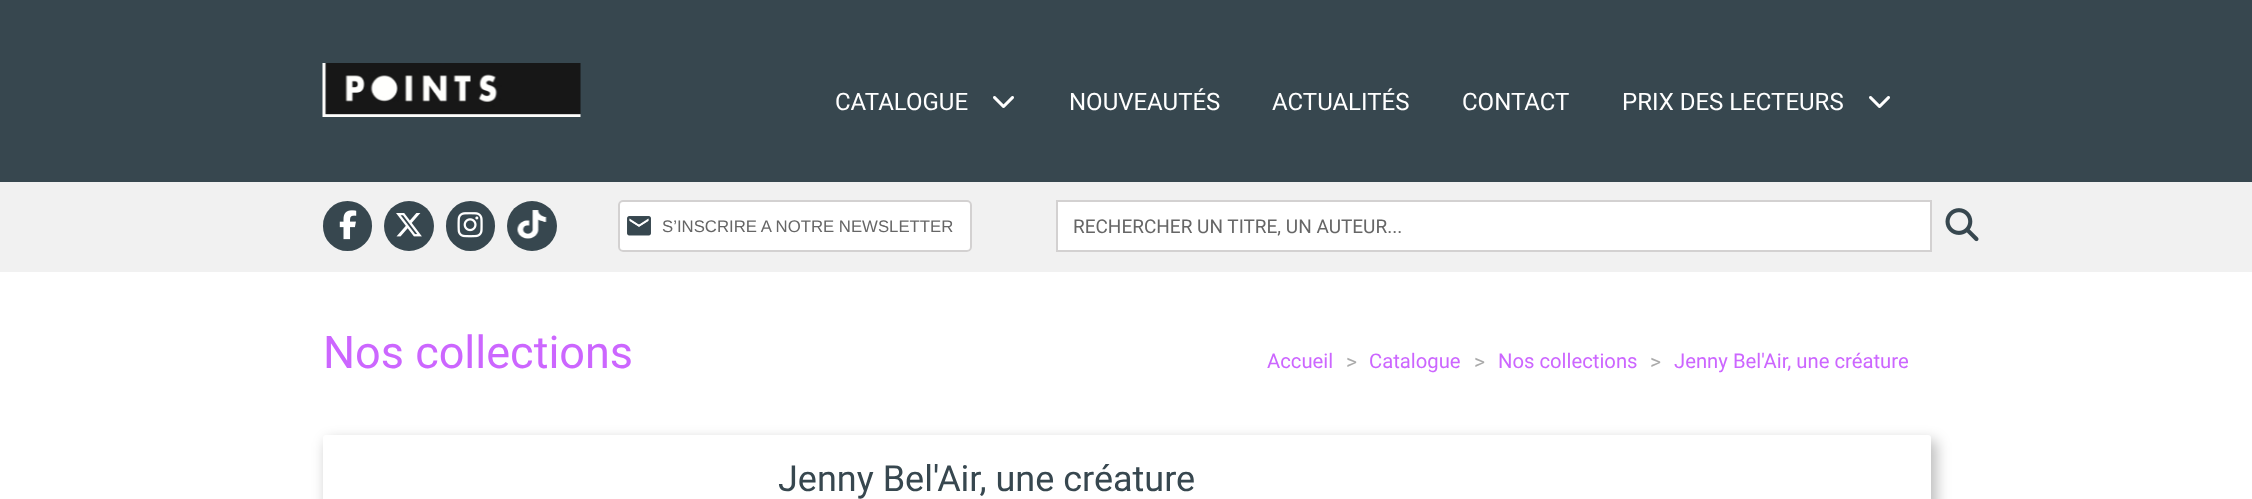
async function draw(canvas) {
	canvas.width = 2252;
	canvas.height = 499;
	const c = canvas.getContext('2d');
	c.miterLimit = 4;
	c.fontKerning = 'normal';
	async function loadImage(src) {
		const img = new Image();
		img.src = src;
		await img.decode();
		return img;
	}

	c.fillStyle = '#fff';
	c.fillRect(0, 0, 2252, 499);
	c.fillStyle = '#37474f';
	c.fillRect(0, 0, 2252, 182);
	c.drawImage(await loadImage('img1.png'), 322, 63, 259, 54);
	c.font = '24px Roboto';
	c.fillStyle = '#fff';
	c.fillText('CATALOGUE', 835, 110);
	c.drawImage(await loadImage('img2.png'), 993, 96, 21, 12);
	for (const [text, x, y] of [
		['NOUVEAUTÉS', 1069, 110],
		['ACTUALITÉS', 1272, 110],
		['CONTACT', 1462, 110],
		['PRIX DES LECTEURS', 1622, 110],
	]) {
		c.fillText(text, x, y);
	}
	c.drawImage(await loadImage('img2.png'), 1869, 96, 21, 12);
	c.fillStyle = '#f1f1f1';
	c.fillRect(0, 182, 2252, 90);
	c.fillStyle = '#37474f';
	c.beginPath();
	c.roundRect(323, 201, 49, 50, 24.5);
	c.fill();
	c.drawImage(await loadImage('img3.png'), 339, 210, 18, 30);
	c.beginPath();
	c.arc(409, 226, 25, 0, 2 * Math.PI);
	c.fill();
	c.drawImage(await loadImage('img4.png'), 396, 213, 26, 24);
	c.beginPath();
	c.roundRect(446, 201, 49, 50, 24.5);
	c.fill();
	c.drawImage(await loadImage('img5.png'), 457, 212, 26, 26);
	c.beginPath();
	c.arc(532, 226, 25, 0, 2 * Math.PI);
	c.fill();
	c.drawImage(await loadImage('img6.png'), 517, 210, 30, 29);
	c.fillStyle = '#fff';
	c.beginPath();
	c.roundRect(618, 200, 354, 52, 5);
	c.fill();
	c.drawImage(await loadImage('img7.png'), 627, 216, 24, 20);
	c.beginPath();
	c.roundRect(619, 201, 352, 50, 4);
	c.strokeStyle = '#d3d1d1';
	c.lineWidth = 2;
	c.stroke();
	c.font = '16.75px Liberation Sans';
	c.fillStyle = '#666';
	c.fillText('S’INSCRIRE A NOTRE NEWSLETTER', 662, 232);
	c.fillStyle = '#fff';
	c.beginPath();
	c.rect(1057, 201, 874, 50);
	c.fill();
	c.stroke();
	c.font = '19px Roboto';
	c.fillStyle = '#666';
	c.fillText('RECHERCHER UN TITRE, UN AUTEUR...', 1073, 233);
	c.drawImage(await loadImage('img8.png'), 1945, 208, 34, 34);
	c.font = '45px Roboto';
	c.fillStyle = '#c6f';
	c.fillText('Nos collections', 323, 368);
	c.font = '20.25px Roboto';
	c.fillText('Accueil', 1267, 368);
	c.font = '21px Roboto';
	c.fillStyle = '#aaa';
	c.fillText('>', 1346, 369);
	c.font = '20.25px Roboto';
	c.fillStyle = '#c6f';
	c.fillText('Catalogue', 1369, 368);
	c.font = '21px Roboto';
	c.fillStyle = '#aaa';
	c.fillText('>', 1474, 369);
	c.font = '20.25px Roboto';
	c.fillStyle = '#c6f';
	c.fillText('Nos collections', 1498, 368);
	c.font = '21px Roboto';
	c.fillStyle = '#aaa';
	c.fillText('>', 1650, 369);
	c.font = '20.25px Roboto';
	c.fillStyle = '#c6f';
	c.fillText('Jenny Bel\'Air, une créature', 1674, 368);
	c.fillStyle = '#00000040';
	c.filter = 'blur(7px)';
	c.beginPath();
	c.roundRect(326, 440, 1611, 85, 5);
	c.fill();
	c.filter = 'none';
	c.fillStyle = '#fff';
	c.beginPath();
	c.roundRect(323, 435, 1608, 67, 3);
	c.fill();
	c.font = '36px Roboto';
	c.fillStyle = '#37474f';
	c.fillText('Jenny Bel\'Air, une créature', 778, 491);
}

draw(document.querySelector('canvas'));
